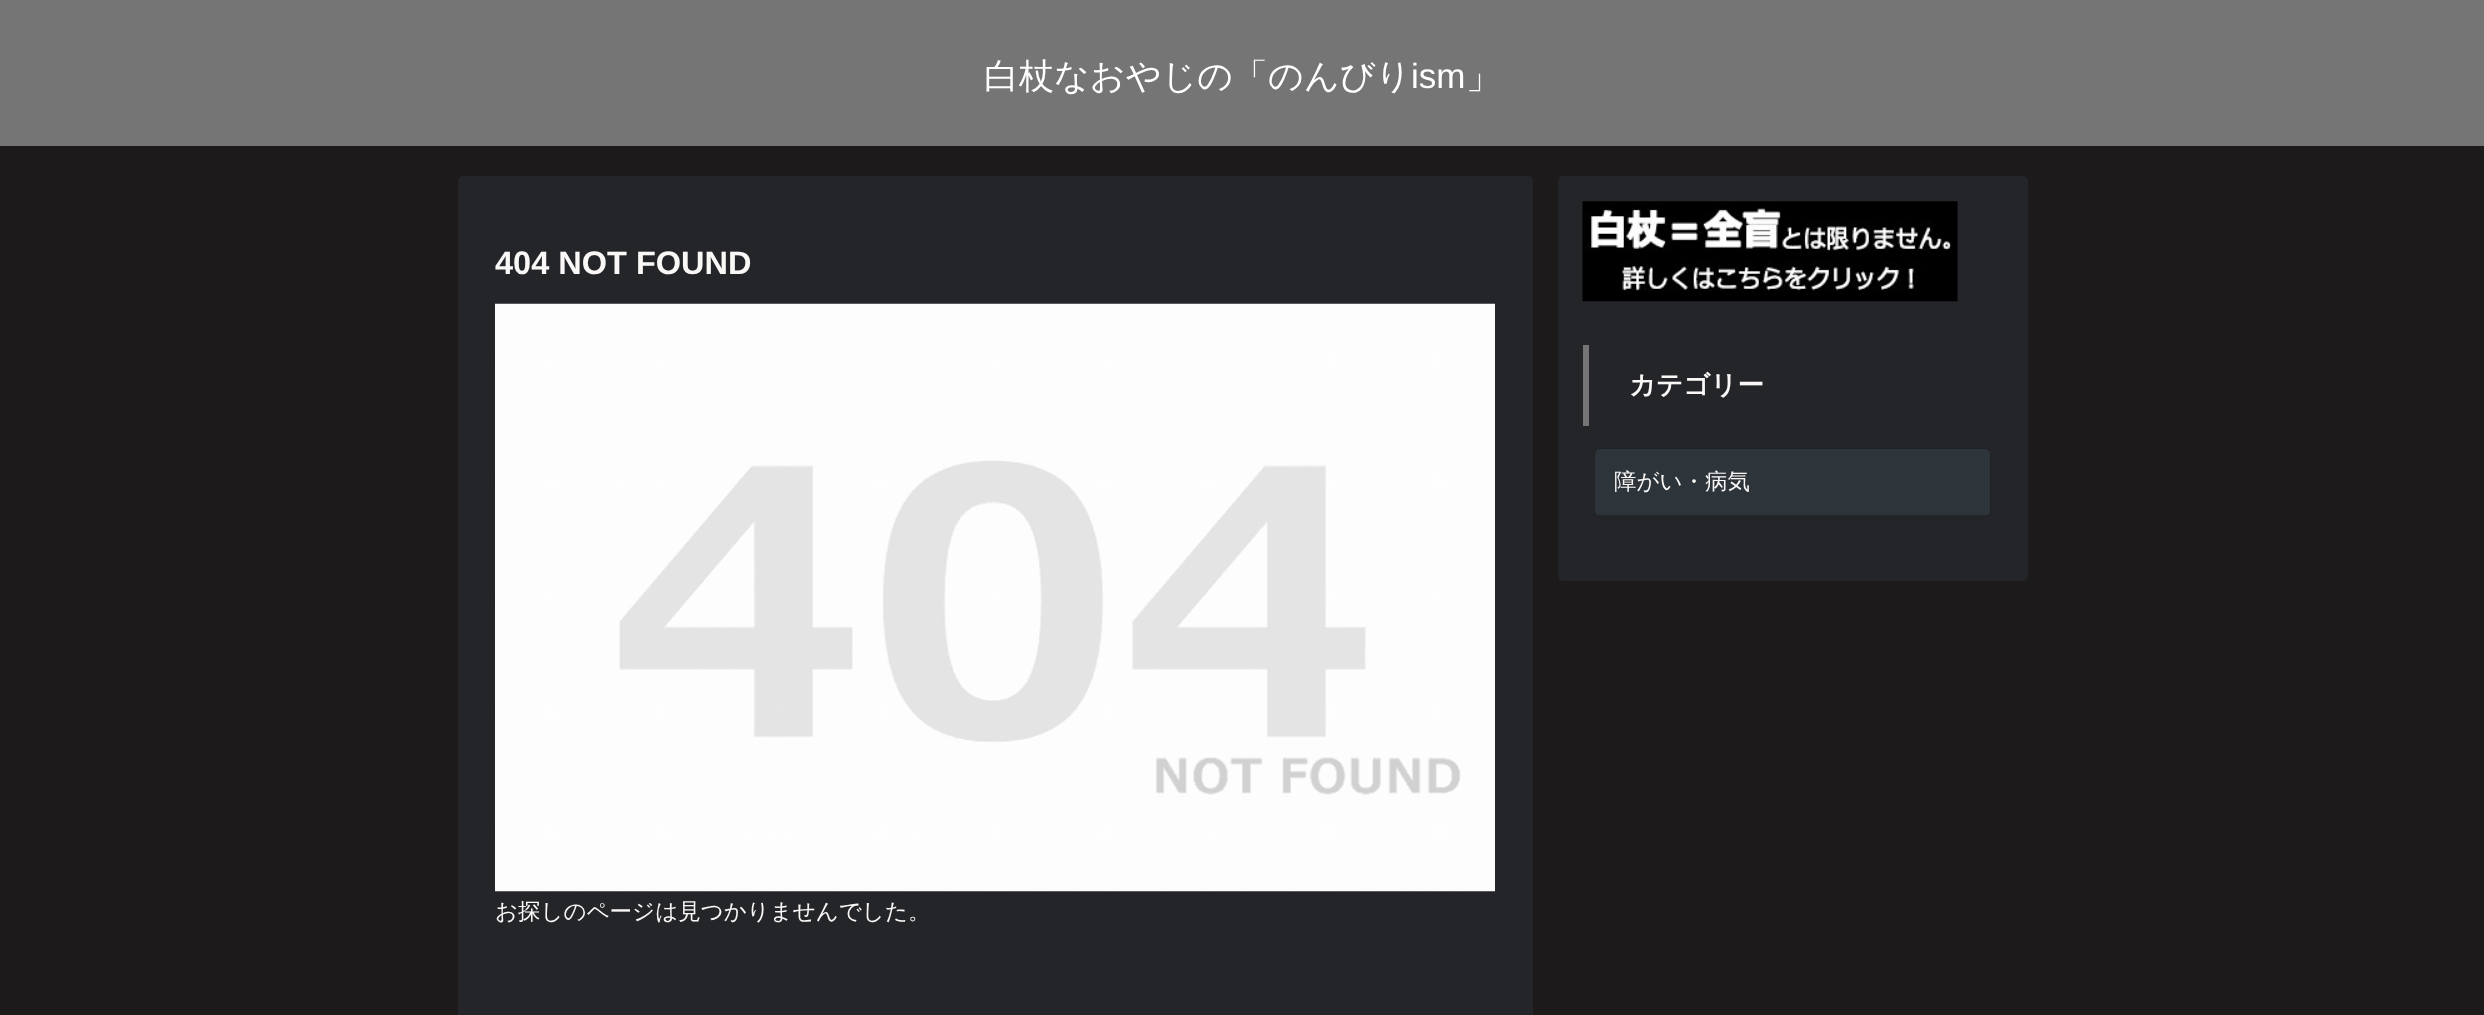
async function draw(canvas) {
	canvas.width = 2484;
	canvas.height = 1015;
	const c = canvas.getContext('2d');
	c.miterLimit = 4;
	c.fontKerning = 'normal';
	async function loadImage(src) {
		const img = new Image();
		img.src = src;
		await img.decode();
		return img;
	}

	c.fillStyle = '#1c1a1a';
	c.fillRect(0, 0, 2484, 1015);
	c.fillStyle = '#757575';
	c.fillRect(0, 0, 2484, 146);
	c.font = '500 35px WenQuanYi Zen Hei';
	c.fillStyle = '#fff';
	c.fillText('白杖なおやじの「のんびり', 984, 88);
	c.font = '35px Liberation Sans';
	c.fillText('ism', 1411, 88);
	c.font = '500 35px WenQuanYi Zen Hei';
	c.fillText('」', 1466, 88);
	c.fillStyle = '#242529';
	c.beginPath();
	c.roundRect(458, 176, 1075, 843, 5);
	c.fill();
	c.font = 'bold 32.5px Liberation Sans';
	c.fillStyle = '#faf8f7';
	c.fillText('404 NOT FOUND', 495, 274);
	c.drawImage(await loadImage('img1.png'), 495, 303, 1000, 589);
	c.font = '500 22.5px WenQuanYi Zen Hei';
	c.fillText('お探しのページは見つかりませんでした。', 495, 919);
	c.fillStyle = '#242529';
	c.beginPath();
	c.roundRect(1558, 176, 470, 405, 5);
	c.fill();
	c.drawImage(await loadImage('img2.png'), 1582, 201, 376, 101);
	c.fillStyle = '#757575';
	c.fillRect(1583, 345, 6, 81);
	c.font = 'bold 26.5px WenQuanYi Zen Hei';
	c.fillStyle = '#faf8f7';
	c.fillText('カテゴリー', 1629, 394);
	c.beginPath();
	c.roundRect(1594.5, 448.5, 396, 69, 5.5);
	c.strokeStyle = '#212226';
	c.stroke();
	c.fillStyle = '#2d343a';
	c.beginPath();
	c.roundRect(1595, 449, 395, 67, 5);
	c.fill();
	c.fillStyle = '#242529';
	c.fillRect(1598, 515, 390, 1);
	c.font = '500 22.5px WenQuanYi Zen Hei';
	c.fillStyle = '#faf8f7';
	c.fillText('障がい・病気', 1614, 489);
}

draw(document.querySelector('canvas'));
